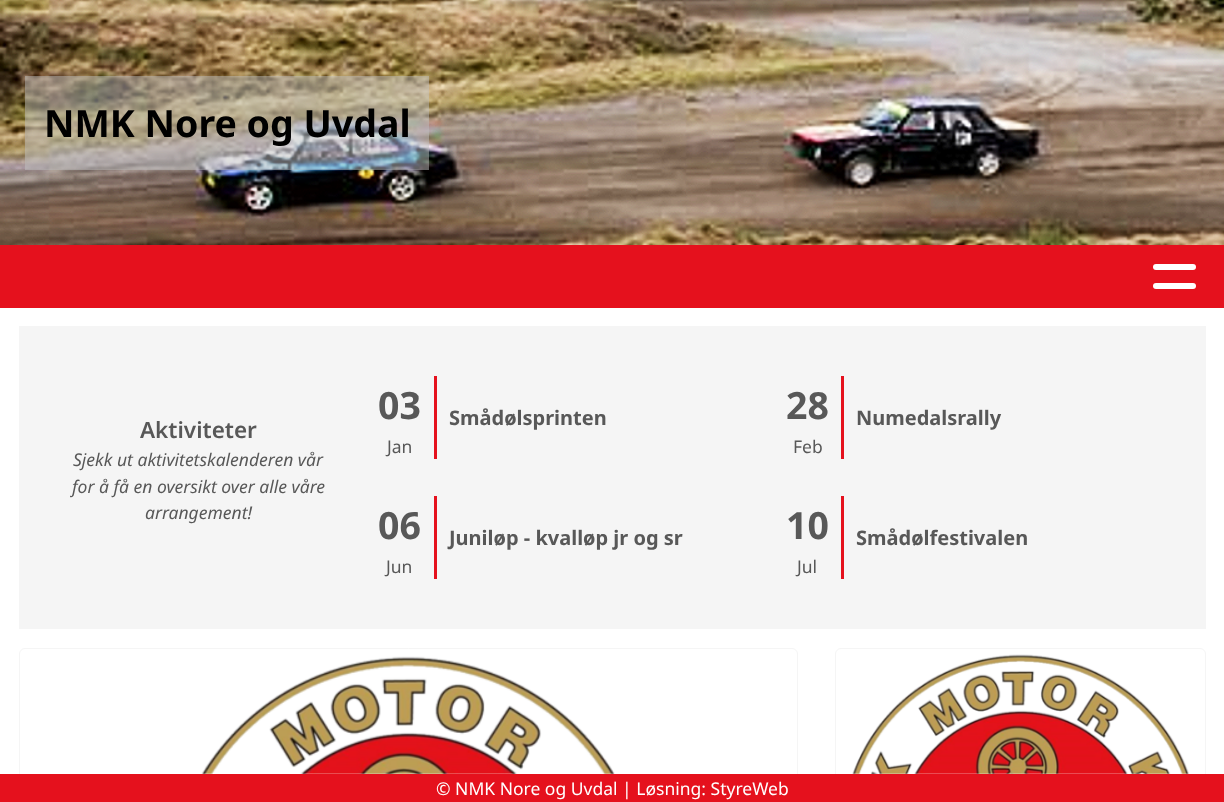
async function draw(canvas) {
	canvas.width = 1224;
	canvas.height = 802;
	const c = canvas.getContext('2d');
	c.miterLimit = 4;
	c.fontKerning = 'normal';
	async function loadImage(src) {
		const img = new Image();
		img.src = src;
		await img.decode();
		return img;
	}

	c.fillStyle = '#fff';
	c.fillRect(0, 0, 1224, 802);
	c.drawImage(await loadImage('img1.png'), 0, 0, 1224, 245);
	c.fillStyle = '#bfbfbf80';
	c.fillRect(25, 76, 404, 94);
	c.font = 'bold 37.5px Noto Sans';
	c.fillStyle = '#000';
	c.fillText('NMK Nore og Uvdal', 44, 137);
	c.fillStyle = '#e5111d';
	c.fillRect(0, 245, 1224, 63);
	c.fillStyle = '#fff';
	c.beginPath();
	c.roundRect(1153, 264, 43, 6, 3);
	c.fill();
	c.beginPath();
	c.roundRect(1153, 283, 43, 6, 3);
	c.fill();
	c.fillStyle = '#f5f5f5';
	c.fillRect(19, 326, 1187, 303);
	c.font = '600 22.5px Noto Sans';
	c.fillStyle = '#585858';
	c.fillText('Aktiviteter', 140, 438);
	c.font = 'italic 17.5px Noto Sans';
	for (const [text, x, y] of [
		['Sjekk ut aktivitetskalenderen vår', 73, 466],
		['for å få en oversikt over alle våre', 72, 493],
		['arrangement!', 145, 519],
	]) {
		c.fillText(text, x, y);
	}
	c.fillStyle = '#e5111d';
	c.fillRect(434, 376, 3, 83);
	c.font = 'bold 37.5px Noto Sans';
	c.fillStyle = '#585858';
	c.fillText('03', 378, 419);
	c.font = '17.5px Noto Sans';
	c.fillText('Jan', 387, 453);
	c.font = 'bold 20px Noto Sans';
	c.fillText('Smådølsprinten', 449, 425);
	c.fillStyle = '#e5111d';
	c.fillRect(841, 376, 3, 83);
	c.font = 'bold 37.5px Noto Sans';
	c.fillStyle = '#585858';
	c.fillText('28', 786, 419);
	c.font = '17.5px Noto Sans';
	c.fillText('Feb', 793, 453);
	c.font = 'bold 20px Noto Sans';
	c.fillText('Numedalsrally', 856, 425);
	c.fillStyle = '#e5111d';
	c.fillRect(434, 496, 3, 83);
	c.font = 'bold 37.5px Noto Sans';
	c.fillStyle = '#585858';
	c.fillText('06', 378, 539);
	c.font = '17.5px Noto Sans';
	c.fillText('Jun', 386, 573);
	c.font = 'bold 20px Noto Sans';
	c.fillText('Juniløp - kvalløp jr og sr', 449, 545);
	c.fillStyle = '#e5111d';
	c.fillRect(841, 496, 3, 83);
	c.font = 'bold 37.5px Noto Sans';
	c.fillStyle = '#585858';
	c.fillText('10', 786, 539);
	c.font = '17.5px Noto Sans';
	c.fillText('Jul', 797, 573);
	c.font = 'bold 20px Noto Sans';
	c.fillText('Smådølfestivalen', 856, 545);
	c.beginPath();
	c.roundRect(19.5, 648.5, 778, 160, 5.5);
	c.strokeStyle = '#f5f5f5';
	c.stroke();
	c.drawImage(await loadImage('img2.png'), 201, 656, 414, 118);
	c.beginPath();
	c.roundRect(835.5, 648.5, 370, 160, 5.5);
	c.stroke();
	c.drawImage(await loadImage('img3.png'), 852, 654, 337, 120);
	c.fillStyle = '#e5111d';
	c.fillRect(0, 774, 1224, 28);
	c.font = '17.5px Noto Sans';
	c.fillStyle = '#fff';
	c.fillText('© NMK Nore og Uvdal | Løsning: StyreWeb', 436, 795);
}

draw(document.querySelector('canvas'));
